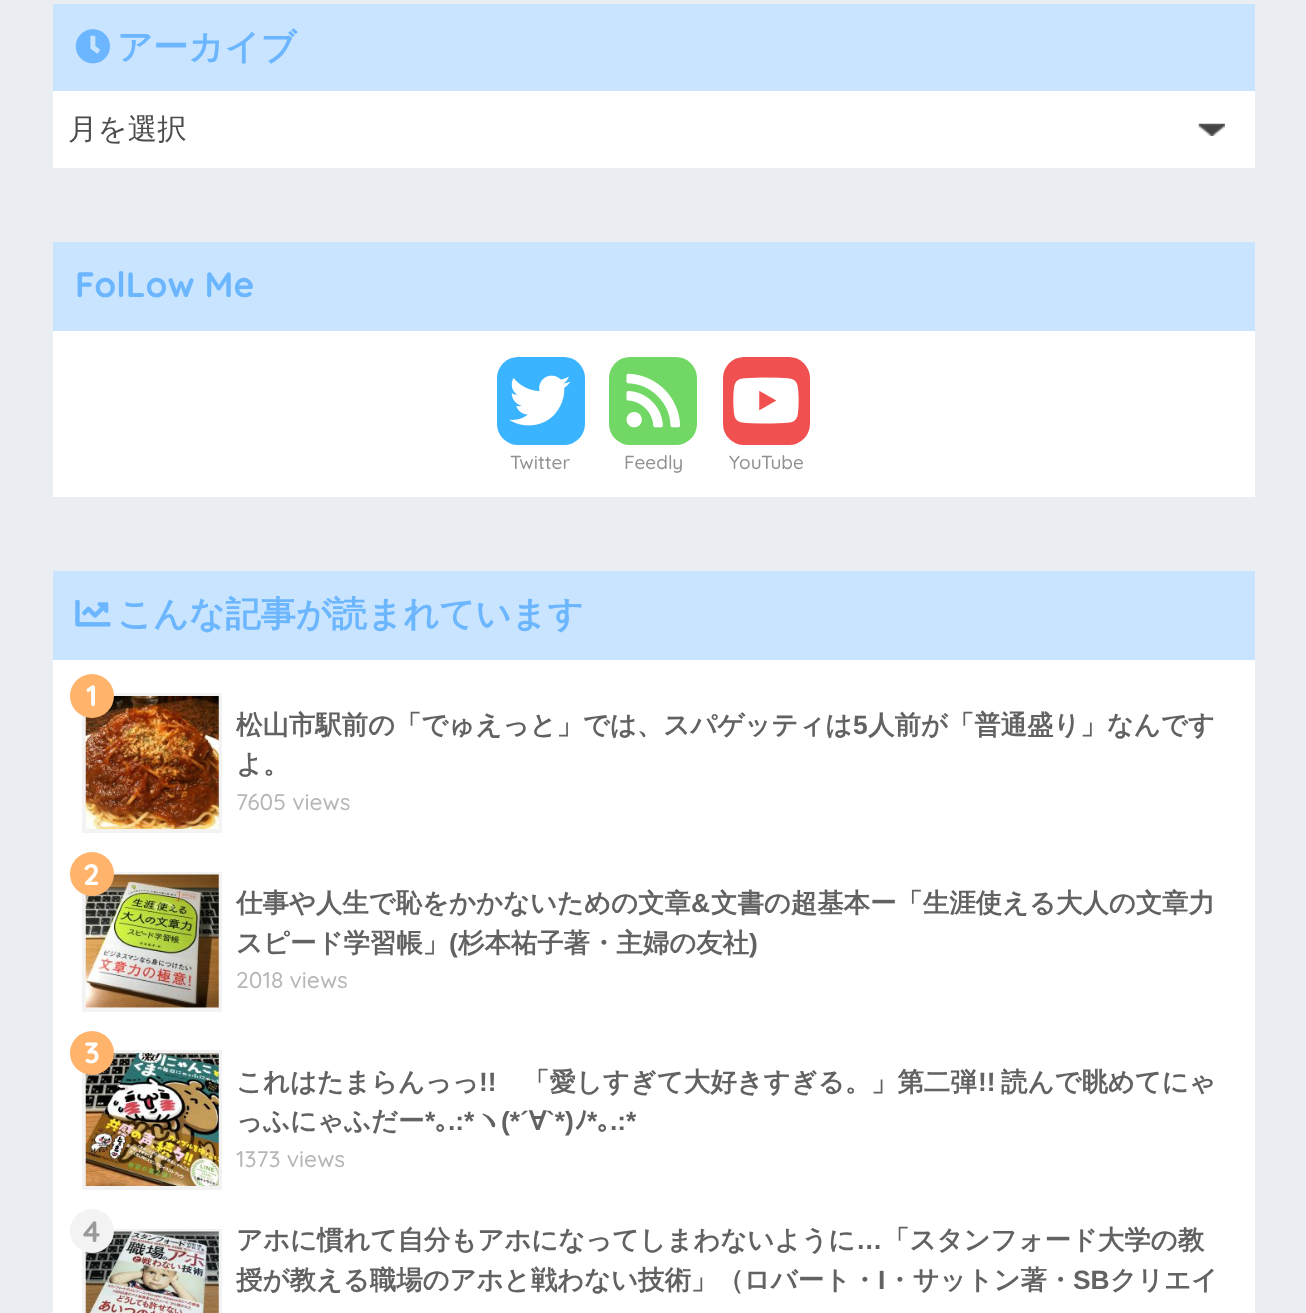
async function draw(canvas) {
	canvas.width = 1306;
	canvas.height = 1313;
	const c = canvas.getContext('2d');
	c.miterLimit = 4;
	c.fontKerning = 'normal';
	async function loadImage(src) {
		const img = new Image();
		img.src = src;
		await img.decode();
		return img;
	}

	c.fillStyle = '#eaedf2';
	c.fillRect(0, 0, 1306, 1313);
	c.fillStyle = '#fff';
	c.fillRect(53, 91, 1202, 77);
	c.fillStyle = '#c8e4ff';
	c.fillRect(53, 4, 1202, 87);
	c.drawImage(await loadImage('img1.png'), 75, 29, 35, 35);
	c.font = 'bold 35.25px WenQuanYi Zen Hei';
	c.fillStyle = '#6bb6ff';
	c.fillText('アーカイブ', 117, 59);
	c.drawImage(await loadImage('img2.png'), 1198, 123, 27, 13);
	c.font = '500 29.5px WenQuanYi Zen Hei';
	c.fillStyle = '#4d4d4d';
	c.fillText('月を選択', 68, 139);
	c.fillStyle = '#fff';
	c.fillRect(53, 331, 1202, 166);
	c.fillStyle = '#c8e4ff';
	c.fillRect(53, 242, 1202, 89);
	c.font = 'bold 35.25px Quicksand';
	c.fillStyle = '#6bb6ff';
	c.fillText('FolLow Me', 75, 297);
	c.fillStyle = '#3ab4ff';
	c.beginPath();
	c.roundRect(497, 357, 88, 88, 21);
	c.fill();
	c.drawImage(await loadImage('img3.png'), 509, 375, 62, 51);
	c.font = '500 19px Quicksand';
	c.fillStyle = '#919191';
	c.fillText('Twitter', 510, 469);
	c.fillStyle = '#72d865';
	c.beginPath();
	c.roundRect(609, 357, 88, 88, 21);
	c.fill();
	c.drawImage(await loadImage('img4.png'), 626, 373, 55, 55);
	c.fillStyle = '#919191';
	c.fillText('Feedly', 624, 469);
	c.fillStyle = '#f0504f';
	c.beginPath();
	c.roundRect(723, 357, 87, 88, 21);
	c.fill();
	c.drawImage(await loadImage('img5.png'), 733, 377, 66, 47);
	c.fillStyle = '#919191';
	c.fillText('YouTube', 729, 469);
	c.fillStyle = '#fff';
	c.fillRect(53, 660, 1202, 653);
	c.fillStyle = '#c8e4ff';
	c.fillRect(53, 571, 1202, 89);
	c.drawImage(await loadImage('img6.png'), 75, 600, 36, 27);
	c.font = 'bold 35.25px WenQuanYi Zen Hei';
	c.fillStyle = '#6bb6ff';
	c.fillText('こんな記事が読まれています', 117, 626);
	c.strokeStyle = '#f3f3f3';
	c.lineWidth = 4;
	c.strokeRect(84, 695, 136, 136);
	c.drawImage(await loadImage('img7.png'), 85, 696, 134, 133);
	c.fillStyle = '#ffb36b';
	c.beginPath();
	c.arc(92, 696, 22, 0, 2 * Math.PI);
	c.fill();
	c.font = 'bold 29.5px Quicksand';
	c.fillStyle = '#fff';
	c.fillText('1', 86, 706);
	c.font = 'bold 26.4px WenQuanYi Zen Hei';
	c.fillStyle = '#626262';
	c.fillText('松山市駅前の「でゅえっと」では、スパゲッティは', 236, 734);
	c.font = 'bold 26.4px Liberation Sans';
	c.fillText('5', 853, 734);
	c.font = 'bold 26.4px WenQuanYi Zen Hei';
	c.fillText('人前が「普通盛り」なんです', 868, 734);
	c.fillText('よ。', 236, 773);
	c.font = '500 22.75px Quicksand';
	c.fillStyle = '#b7b7b7';
	c.fillText('7605 views', 236, 810);
	c.strokeRect(84, 874, 136, 136);
	c.drawImage(await loadImage('img8.png'), 85, 874, 134, 134);
	c.fillStyle = '#ffb36b';
	c.beginPath();
	c.arc(92, 874, 22, 0, 2 * Math.PI);
	c.fill();
	c.font = 'bold 29.5px Quicksand';
	c.fillStyle = '#fff';
	c.fillText('2', 83, 885);
	c.font = 'bold 26.4px WenQuanYi Zen Hei';
	c.fillStyle = '#626262';
	c.fillText('仕事や人生で恥をかかないための文章', 236, 912);
	c.font = 'bold 26.4px Liberation Sans';
	c.fillText('&', 691, 912);
	c.font = 'bold 26.4px WenQuanYi Zen Hei';
	c.fillText('文書の超基本ー「生涯使える大人の文章力', 711, 912);
	c.fillText('スピード学習帳」', 236, 952);
	c.font = 'bold 26.4px Liberation Sans';
	c.fillText('(', 449, 952);
	c.font = 'bold 26.4px WenQuanYi Zen Hei';
	c.fillText('杉本祐子著・主婦の友社', 458, 952);
	c.font = 'bold 26.4px Liberation Sans';
	c.fillText(')', 749, 952);
	c.font = '500 22.75px Quicksand';
	c.fillStyle = '#b7b7b7';
	c.fillText('2018 views', 236, 988);
	c.strokeRect(84, 1052, 136, 136);
	c.drawImage(await loadImage('img9.png'), 85, 1053, 134, 133);
	c.fillStyle = '#ffb36b';
	c.beginPath();
	c.arc(92, 1053, 22, 0, 2 * Math.PI);
	c.fill();
	c.font = 'bold 29.5px Quicksand';
	c.fillStyle = '#fff';
	c.fillText('3', 84, 1063);
	c.font = 'bold 26.4px WenQuanYi Zen Hei';
	c.fillStyle = '#626262';
	c.fillText('これはたまらんっっ', 236, 1091);
	c.font = 'bold 26.4px Liberation Sans';
	c.fillText('!!', 479, 1091);
	c.font = 'bold 26.4px WenQuanYi Zen Hei';
	c.fillText('「愛しすぎて大好きすぎる。」第二弾', 523, 1091);
	c.font = 'bold 26.4px Liberation Sans';
	c.fillText('!!', 978, 1091);
	c.font = 'bold 26.4px WenQuanYi Zen Hei';
	c.fillText('読んで眺めてにゃ', 1001, 1091);
	c.fillText('っふにゃふだー', 236, 1130);
	c.font = 'bold 26.4px Liberation Sans';
	c.fillText('*', 425, 1130);
	c.font = 'bold 26.4px IPAPGothic';
	c.fillText('｡', 435, 1130);
	c.font = 'bold 26.4px Liberation Sans';
	c.fillText('.:*', 448, 1130);
	c.font = 'bold 26.4px WenQuanYi Zen Hei';
	c.fillText('ヽ', 475, 1130);
	c.font = 'bold 26.4px Liberation Sans';
	c.fillText('(*´', 501, 1130);
	c.font = 'bold 26.4px WenQuanYi Zen Hei';
	c.fillText('∀︎', 529, 1130);
	c.font = 'bold 26.4px Liberation Sans';
	c.fillText('`*)', 546, 1130);
	c.font = 'bold 26.4px IPAPGothic';
	c.fillText('ﾉ', 574, 1130);
	c.font = 'bold 26.4px Liberation Sans';
	c.fillText('*', 587, 1130);
	c.font = 'bold 26.4px IPAPGothic';
	c.fillText('｡', 597, 1130);
	c.font = 'bold 26.4px Liberation Sans';
	c.fillText('.:*', 610, 1130);
	c.font = '500 22.75px Quicksand';
	c.fillStyle = '#b7b7b7';
	c.fillText('1373 views', 236, 1167);
	c.strokeRect(84, 1231, 136, 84);
	c.drawImage(await loadImage('img10.png'), 85, 1231, 134, 82);
	c.fillStyle = '#f3f3f3';
	c.beginPath();
	c.arc(92, 1231, 22, 0, 2 * Math.PI);
	c.fill();
	c.font = 'bold 29.5px Quicksand';
	c.fillStyle = '#9a9a9a';
	c.fillText('4', 83, 1242);
	c.font = 'bold 26.4px WenQuanYi Zen Hei';
	c.fillStyle = '#626262';
	c.fillText('アホに慣れて自分もアホになってしまわないように', 236, 1249);
	c.font = 'bold 26.4px Liberation Sans';
	c.fillText('…', 856, 1249);
	c.font = 'bold 26.4px WenQuanYi Zen Hei';
	c.fillText('「スタンフォード大学の教', 883, 1249);
	c.fillText('授が教える職場のアホと戦わない技術」（ロバート・', 236, 1289);
	c.font = 'bold 26.4px Liberation Sans';
	c.fillText('I', 878, 1289);
	c.font = 'bold 26.4px WenQuanYi Zen Hei';
	c.fillText('・サットン著・', 886, 1289);
	c.font = 'bold 26.4px Liberation Sans';
	c.fillText('SB', 1073, 1289);
	c.font = 'bold 26.4px WenQuanYi Zen Hei';
	c.fillText('クリエイ', 1110, 1289);
}

draw(document.querySelector('canvas'));
